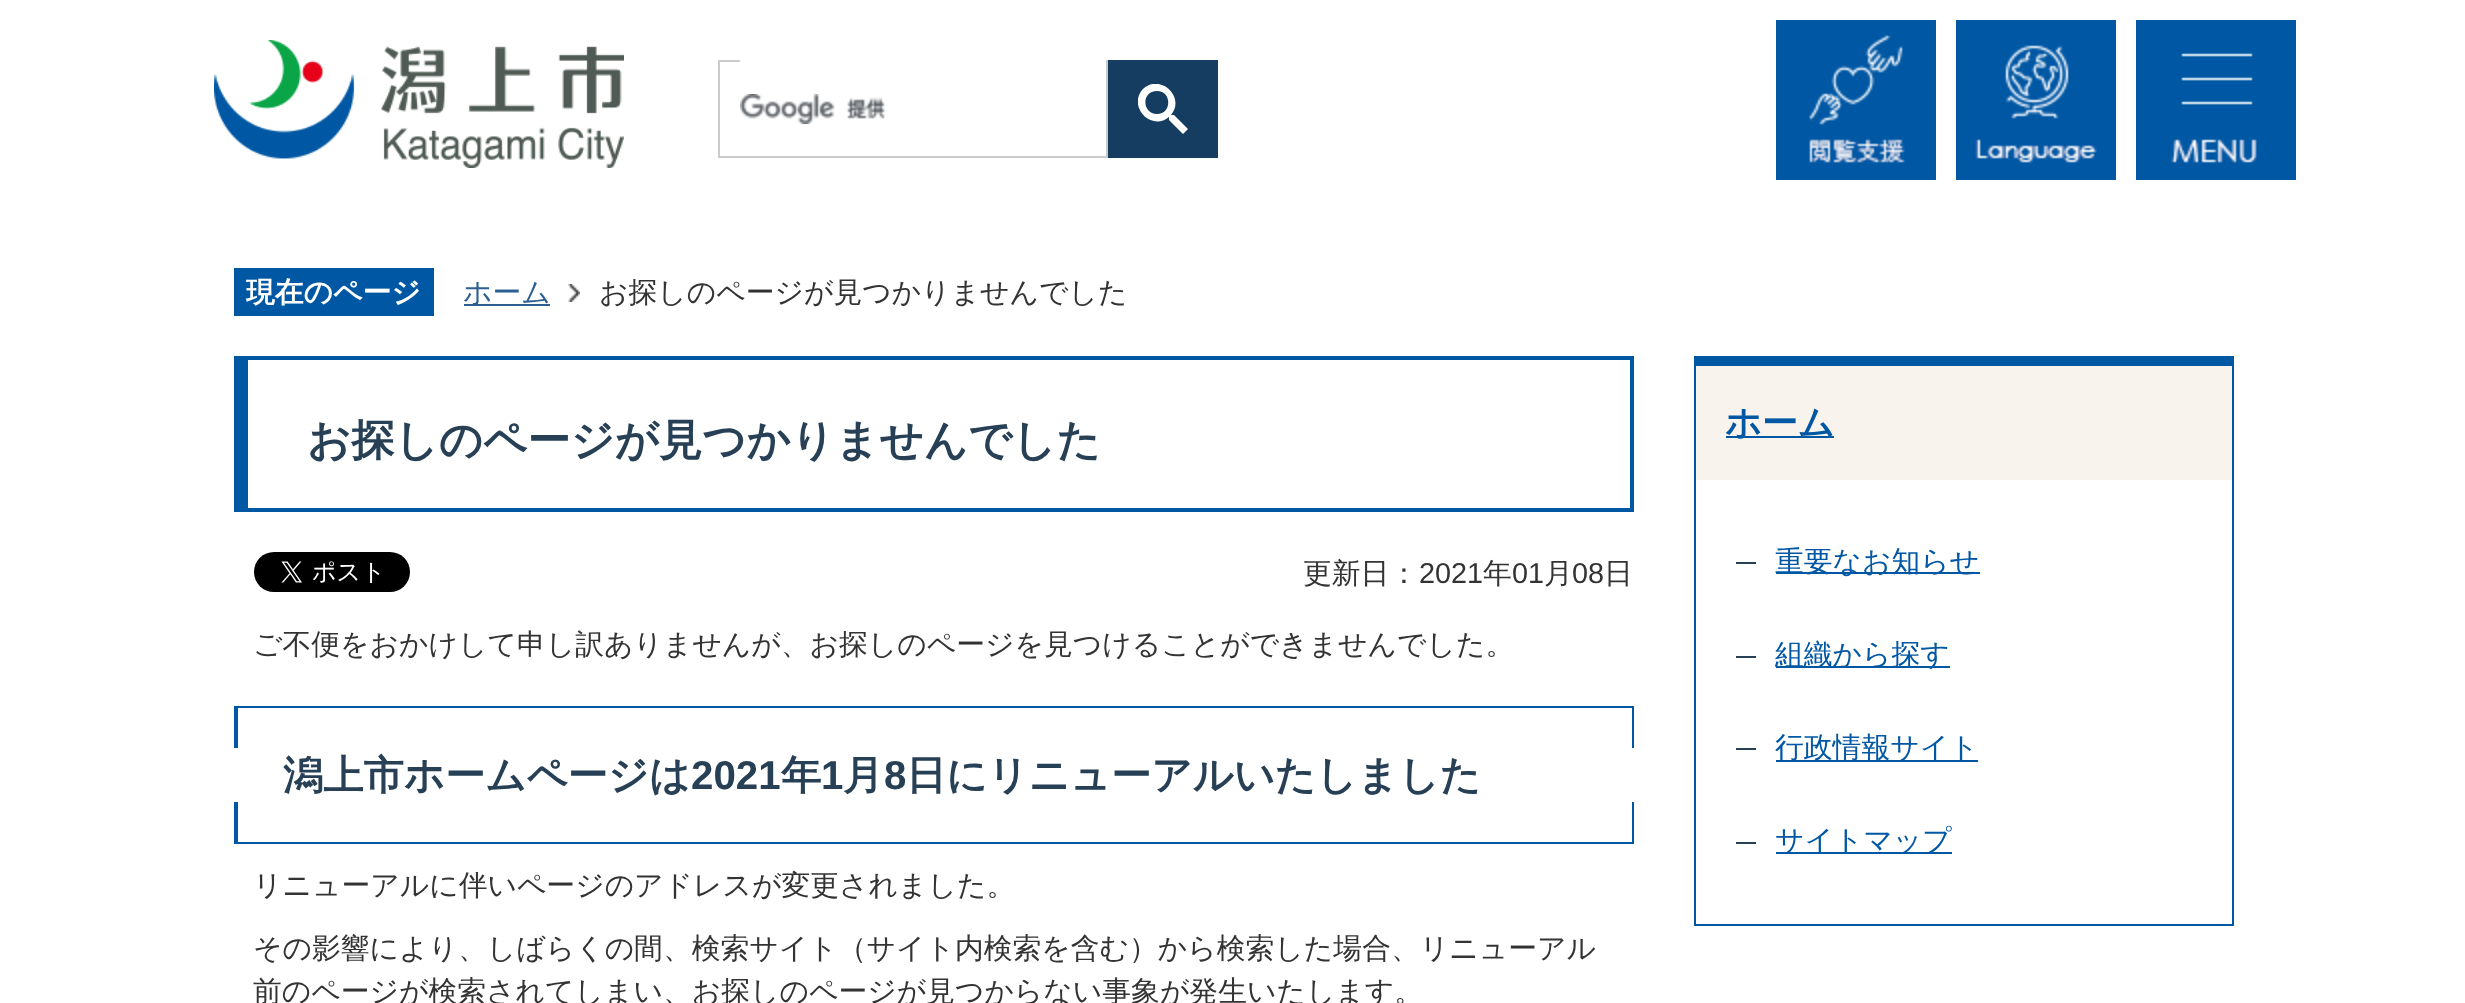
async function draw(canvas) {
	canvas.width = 2465;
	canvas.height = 1003;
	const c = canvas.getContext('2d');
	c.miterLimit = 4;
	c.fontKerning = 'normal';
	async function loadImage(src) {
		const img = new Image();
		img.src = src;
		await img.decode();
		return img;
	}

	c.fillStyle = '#fff';
	c.fillRect(0, 0, 2465, 1003);
	c.drawImage(await loadImage('img1.png'), 214, 40, 410, 128);
	c.strokeStyle = '#ccc';
	c.lineWidth = 2;
	c.strokeRect(719, 61, 388, 96);
	c.fillRect(740, 60, 366, 2);
	c.drawImage(await loadImage('img2.png'), 740, 94, 146, 30);
	c.fillStyle = '#153d61';
	c.fillRect(1108, 60, 110, 98);
	c.save();
	c.beginPath();
	c.rect(1138, 84, 50, 50);
	c.clip();
	c.fillStyle = '#fff';
	c.beginPath();
	c.moveTo(1157, 114);
	c.bezierCurveTo(1172, 114, 1172, 91, 1157, 91);
	c.bezierCurveTo(1141, 91, 1142, 114, 1157, 114);
	c.closePath();
	c.moveTo(1174, 115);
	c.lineTo(1188, 129);
	c.lineTo(1183, 134);
	c.lineTo(1169, 120);
	c.lineTo(1169, 117);
	c.bezierCurveTo(1151, 132, 1127, 106, 1143, 89);
	c.bezierCurveTo(1160, 73, 1186, 97, 1171, 115);
	c.closePath();
	c.fill();
	c.restore();
	c.drawImage(await loadImage('img3.png'), 1776, 20, 160, 160);
	c.drawImage(await loadImage('img4.png'), 1956, 20, 160, 160);
	c.drawImage(await loadImage('img5.png'), 2136, 20, 160, 160);
	c.fillStyle = '#0057a4';
	c.fillRect(234, 268, 200, 48);
	c.font = 'bold 28.8px WenQuanYi Zen Hei';
	c.fillStyle = '#fff';
	c.fillText('現在のページ', 246, 302);
	c.fillStyle = '#2d5f92';
	c.fillRect(464, 304, 86, 2);
	c.font = '500 28.8px WenQuanYi Zen Hei';
	c.fillText('ホーム', 463, 302);
	c.drawImage(await loadImage('img6.png'), 568, 284, 12, 18);
	c.fillStyle = '#333';
	c.fillText('お探しのページが見つかりませんでした', 599, 302);
	for (const [x, y, w, h, color] of [
		[248, 356, 1386, 4, '#0057a4'],
		[1630, 356, 4, 156, '#0057a4'],
		[248, 508, 1386, 4, '#0057a4'],
		[234, 356, 14, 156, '#0057a4'],
	]) {
		c.fillStyle = color;
		c.fillRect(x, y, w, h);
	}
	c.font = 'bold 43.25px WenQuanYi Zen Hei';
	c.fillStyle = '#274055';
	c.fillText('お探しのページが見つかりませんでした', 307, 455);
	c.drawImage(await loadImage('img7.png'), 254, 552, 156, 40);
	c.font = '500 28.8px WenQuanYi Zen Hei';
	c.fillStyle = '#333';
	c.fillText('更新日：', 1303, 583);
	c.font = '28.8px Liberation Sans';
	c.fillText('2021', 1419, 583);
	c.font = '500 28.8px WenQuanYi Zen Hei';
	c.fillText('年', 1483, 583);
	c.font = '28.8px Liberation Sans';
	c.fillText('01', 1512, 583);
	c.font = '500 28.8px WenQuanYi Zen Hei';
	c.fillText('月', 1544, 583);
	c.font = '28.8px Liberation Sans';
	c.fillText('08', 1572, 583);
	c.font = '500 28.8px WenQuanYi Zen Hei';
	c.fillText('日', 1604, 583);
	c.fillText('ご不便をおかけして申し訳ありませんが、お探しのページを見つけることができませんでした。', 253, 654);
	c.drawImage(await loadImage('img8.png'), 234, 708, 1400, 134);
	c.fillStyle = '#0057a4';
	c.fillRect(234, 706, 1400, 2);
	c.fillRect(234, 842, 1400, 2);
	c.font = 'bold 40.25px WenQuanYi Zen Hei';
	c.fillStyle = '#274055';
	c.fillText('潟上市ホームページは', 283, 789);
	c.font = 'bold 40.25px Liberation Sans';
	c.fillText('2021', 691, 789);
	c.font = 'bold 40.25px WenQuanYi Zen Hei';
	c.fillText('年', 781, 789);
	c.font = 'bold 40.25px Liberation Sans';
	c.fillText('1', 821, 789);
	c.font = 'bold 40.25px WenQuanYi Zen Hei';
	c.fillText('月', 843, 789);
	c.font = 'bold 40.25px Liberation Sans';
	c.fillText('8', 884, 789);
	c.font = 'bold 40.25px WenQuanYi Zen Hei';
	c.fillText('日にリニューアルいたしました', 906, 789);
	c.font = '500 28.8px WenQuanYi Zen Hei';
	c.fillStyle = '#333';
	for (const [text, x, y] of [
		['リニューアルに伴いページのアドレスが変更されました。', 253, 895],
		['その影響により、しばらくの間、検索サイト（サイト内検索を含む）から検索した場合、リニューアル', 253, 958],
		['前のページが検索されてしまい、お探しのページが見つからない事象が発生いたします。', 253, 1001],
	]) {
		c.fillText(text, x, y);
	}
	for (const [x, y, w, h, color] of [
		[1696, 356, 536, 10, '#0057a4'],
		[2232, 356, 2, 570, '#0057a4'],
		[1694, 924, 540, 2, '#0057a4'],
		[1694, 356, 2, 570, '#0057a4'],
		[1696, 366, 536, 114, '#f8f3ec'],
		[1726, 436, 108, 2, '#0057a4'],
	]) {
		c.fillStyle = color;
		c.fillRect(x, y, w, h);
	}
	c.font = 'bold 36px WenQuanYi Zen Hei';
	c.fillText('ホーム', 1725, 435);
	c.fillStyle = '#274055';
	c.fillRect(1736, 562, 20, 2);
	c.fillStyle = '#0057a4';
	c.fillRect(1776, 572, 204, 2);
	c.font = '500 28.8px WenQuanYi Zen Hei';
	c.fillText('重要なお知らせ', 1775, 571);
	c.fillStyle = '#274055';
	c.fillRect(1736, 656, 20, 2);
	c.fillStyle = '#0057a4';
	c.fillRect(1776, 666, 174, 2);
	c.fillText('組織から探す', 1775, 664);
	c.fillStyle = '#274055';
	c.fillRect(1736, 748, 20, 2);
	c.fillStyle = '#0057a4';
	c.fillRect(1776, 760, 202, 2);
	c.fillText('行政情報サイト', 1775, 757);
	c.fillStyle = '#274055';
	c.fillRect(1736, 842, 20, 2);
	c.fillStyle = '#0057a4';
	c.fillRect(1776, 852, 176, 2);
	c.fillText('サイトマップ', 1775, 850);
}

draw(document.querySelector('canvas'));
